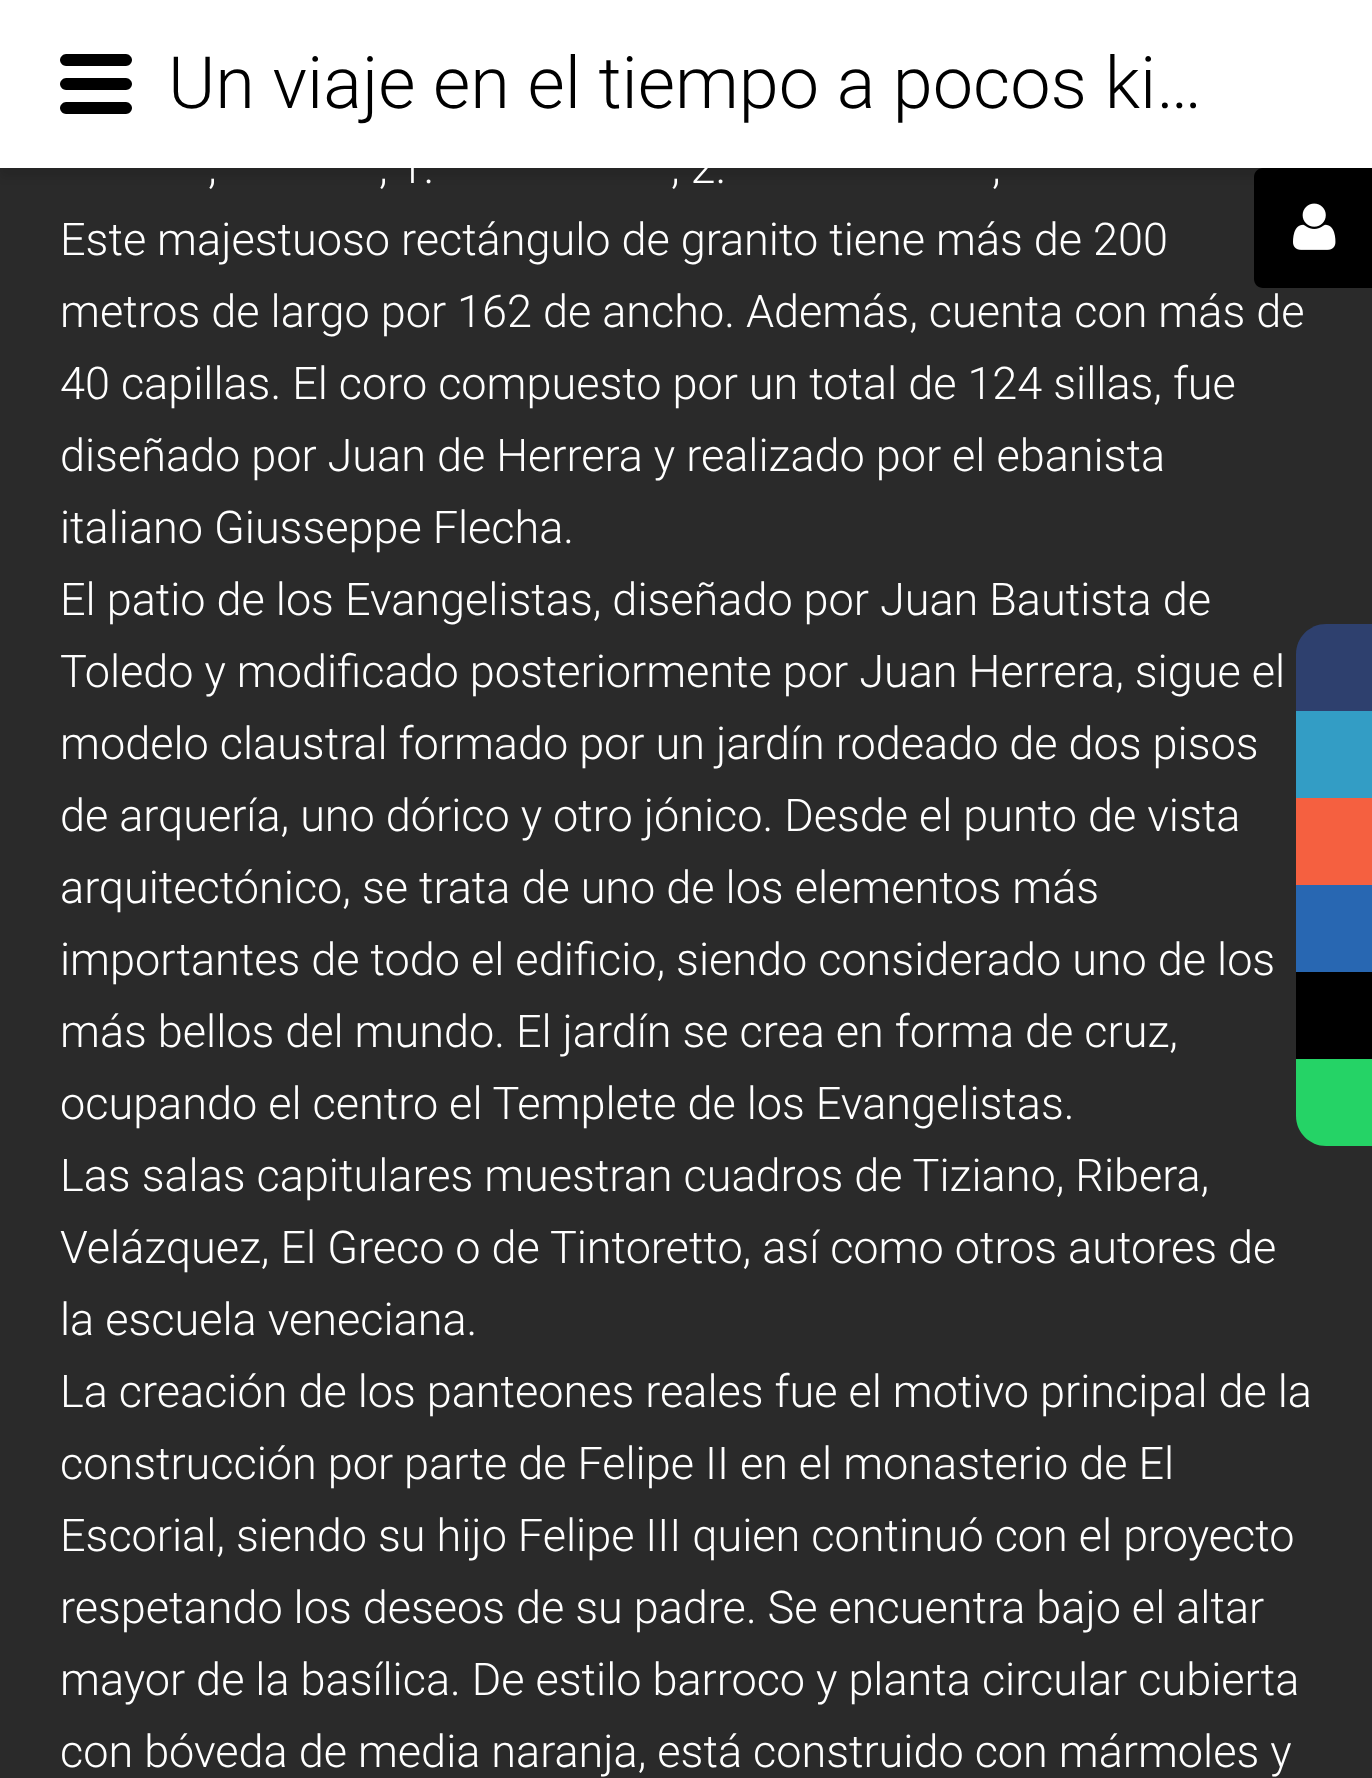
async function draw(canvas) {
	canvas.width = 1372;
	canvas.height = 1778;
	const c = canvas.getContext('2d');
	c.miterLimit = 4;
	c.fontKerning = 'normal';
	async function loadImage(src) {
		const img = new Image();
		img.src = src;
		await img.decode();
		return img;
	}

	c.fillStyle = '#2a2a2a';
	c.fillRect(0, 0, 1372, 1778);
	c.fillStyle = '#0000001a';
	c.filter = 'blur(4.5px)';
	c.beginPath();
	c.rect(0, 9, 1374, 168);
	c.fill();
	c.filter = 'none';
	c.fillStyle = '#fff';
	c.fillRect(0, 0, 1372, 168);
	c.fillStyle = '#000';
	c.beginPath();
	c.moveTo(126, 90);
	c.lineTo(66, 90);
	c.bezierCurveTo(63, 90, 60, 87, 60, 84);
	c.bezierCurveTo(60, 81, 63, 78, 66, 78);
	c.lineTo(126, 78);
	c.bezierCurveTo(129, 78, 132, 81, 132, 84);
	c.bezierCurveTo(132, 87, 129, 90, 126, 90);
	c.closePath();
	c.fill();
	c.beginPath();
	c.moveTo(126, 66);
	c.lineTo(66, 66);
	c.bezierCurveTo(63, 66, 60, 63, 60, 60);
	c.bezierCurveTo(60, 57, 63, 54, 66, 54);
	c.lineTo(126, 54);
	c.bezierCurveTo(129, 54, 132, 57, 132, 60);
	c.bezierCurveTo(132, 63, 129, 66, 126, 66);
	c.closePath();
	c.fill();
	c.beginPath();
	c.moveTo(126, 114);
	c.lineTo(66, 114);
	c.bezierCurveTo(63, 114, 60, 111, 60, 108);
	c.bezierCurveTo(60, 105, 63, 102, 66, 102);
	c.lineTo(126, 102);
	c.bezierCurveTo(129, 102, 132, 105, 132, 108);
	c.bezierCurveTo(132, 111, 129, 114, 126, 114);
	c.closePath();
	c.fill();
	c.font = '300 72px Roboto';
	c.fillText('Un viaje en el tiempo a pocos ki…', 168, 108);
	c.font = '300 45px Roboto';
	c.fillStyle = '#fff';
	for (const [text, x, y] of [
		[',', 208, 183],
		[', 1.', 379, 183],
		[', 2.', 671, 183],
		[',', 992, 183],
		['Este majestuoso rectángulo de granito tiene más de 200', 60, 255],
		['metros de largo por 162 de ancho. Además, cuenta con más de', 60, 327],
		['40 capillas. El coro compuesto por un total de 124 sillas, fue', 60, 399],
		['diseñado por Juan de Herrera y realizado por el ebanista', 60, 471],
		['italiano Giusseppe Flecha.', 60, 543],
		['El patio de los Evangelistas, diseñado por Juan Bautista de', 60, 615],
		['Toledo y modificado posteriormente por Juan Herrera, sigue el', 60, 687],
		['modelo claustral formado por un jardín rodeado de dos pisos', 60, 759],
		['de arquería, uno dórico y otro jónico. Desde el punto de vista', 60, 831],
		['arquitectónico, se trata de uno de los elementos más', 60, 903],
		['importantes de todo el edificio, siendo considerado uno de los', 60, 975],
		['más bellos del mundo. El jardín se crea en forma de cruz,', 60, 1047],
		['ocupando el centro el Templete de los Evangelistas.', 60, 1119],
		['Las salas capitulares muestran cuadros de Tiziano, Ribera,', 60, 1191],
		['Velázquez, El Greco o de Tintoretto, así como otros autores de', 60, 1263],
		['la escuela veneciana.', 60, 1335],
		['La creación de los panteones reales fue el motivo principal de la', 60, 1407],
		['construcción por parte de Felipe II en el monasterio de El', 60, 1479],
		['Escorial, siendo su hijo Felipe III quien continuó con el proyecto', 60, 1551],
		['respetando los deseos de su padre. Se encuentra bajo el altar', 60, 1623],
		['mayor de la basílica. De estilo barroco y planta circular cubierta', 60, 1695],
		['con bóveda de media naranja, está construido con mármoles y', 60, 1767],
	]) {
		c.fillText(text, x, y);
	}
	c.fillStyle = '#2e406e';
	c.beginPath();
	c.moveTo(1326, 624);
	c.lineTo(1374, 624);
	c.lineTo(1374, 711);
	c.lineTo(1296, 711);
	c.lineTo(1296, 654);
	c.bezierCurveTo(1296, 637.5, 1309.5, 624, 1326, 624);
	c.closePath();
	c.fill();
	for (const [x, y, w, h, color] of [
		[1296, 711, 76, 87, '#339dc5'],
		[1296, 798, 76, 87, '#f56040'],
		[1296, 885, 76, 87, '#2867b2'],
		[1296, 972, 76, 87, '#000'],
	]) {
		c.fillStyle = color;
		c.fillRect(x, y, w, h);
	}
	c.fillStyle = '#25d366';
	c.beginPath();
	c.moveTo(1296, 1059);
	c.lineTo(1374, 1059);
	c.lineTo(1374, 1146);
	c.lineTo(1326, 1146);
	c.bezierCurveTo(1309.5, 1146, 1296, 1132.5, 1296, 1116);
	c.closePath();
	c.fill();
	c.fillStyle = '#000';
	c.beginPath();
	c.moveTo(1263, 168);
	c.lineTo(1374, 168);
	c.lineTo(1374, 288);
	c.lineTo(1263, 288);
	c.bezierCurveTo(1258, 288, 1254, 284, 1254, 279);
	c.lineTo(1254, 177);
	c.bezierCurveTo(1254, 172, 1258, 168, 1263, 168);
	c.closePath();
	c.fill();
	c.drawImage(await loadImage('img1.png'), 1293, 203, 43, 47);
}

draw(document.querySelector('canvas'));
